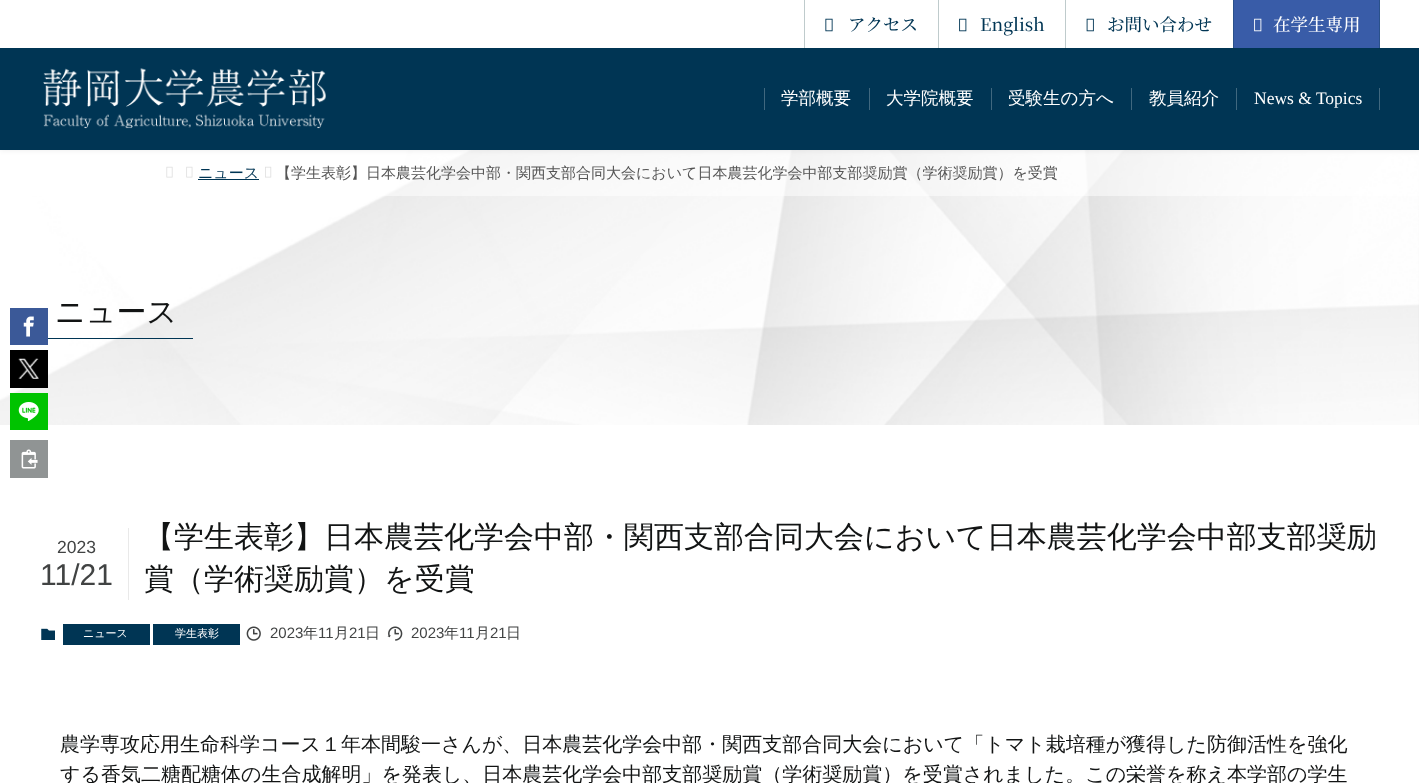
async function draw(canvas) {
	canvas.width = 1419;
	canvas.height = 783;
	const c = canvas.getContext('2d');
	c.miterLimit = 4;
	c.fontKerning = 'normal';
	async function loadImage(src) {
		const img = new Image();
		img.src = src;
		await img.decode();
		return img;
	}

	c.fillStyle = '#fff';
	c.fillRect(0, 0, 1419, 783);
	c.drawImage(await loadImage('img6.png'), 0, 150, 1419, 275);
	c.fillStyle = '#0000001f';
	c.filter = 'blur(2.5px)';
	c.beginPath();
	c.rect(0, 1, 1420, 150);
	c.fill();
	c.filter = 'none';
	for (const [x, y, w, h, color] of [
		[0, 48, 1419, 102, '#003554'],
		[0, 0, 1419, 48, '#fff'],
		[804, 0, 1, 49, '#00313340'],
	]) {
		c.fillStyle = color;
		c.fillRect(x, y, w, h);
	}
	c.drawImage(await loadImage('img1.png'), 825, 18, 8, 14);
	c.font = '500 17.5px Noto Serif JP';
	c.fillStyle = '#003554';
	c.fillText('アクセス', 848, 31);
	c.fillStyle = '#00313340';
	c.fillRect(938, 0, 1, 49);
	c.drawImage(await loadImage('img2.png'), 959, 18, 8, 14);
	c.fillStyle = '#003554';
	c.fillText('English', 980, 31);
	c.fillStyle = '#00313340';
	c.fillRect(1065, 0, 1, 49);
	c.drawImage(await loadImage('img3.png'), 1086, 18, 8, 14);
	c.fillStyle = '#003554';
	c.fillText('お問い合わせ', 1107, 31);
	c.fillStyle = '#395ca8';
	c.fillRect(1233, 0, 147, 48);
	c.fillStyle = '#00313340';
	c.fillRect(1233, 0, 1, 49);
	c.drawImage(await loadImage('img4.png'), 1254, 18, 8, 14);
	c.fillStyle = '#fff';
	c.fillText('在学生専用', 1273, 31);
	c.fillStyle = '#00313340';
	c.fillRect(1379, 0, 1, 49);
	c.drawImage(await loadImage('img5.png'), 43, 68, 283, 61);
	c.fillStyle = '#40687f';
	c.fillRect(764, 88, 1, 22);
	c.font = '500 17.5px WenQuanYi Zen Hei';
	c.fillStyle = '#fff';
	c.fillText('学部概要', 781, 104);
	c.fillStyle = '#40687f';
	c.fillRect(869, 88, 1, 22);
	c.fillStyle = '#fff';
	c.fillText('大学院概要', 886, 104);
	c.fillStyle = '#40687f';
	c.fillRect(991, 88, 1, 22);
	c.fillStyle = '#fff';
	c.fillText('受験生の方へ', 1008, 104);
	c.fillStyle = '#40687f';
	c.fillRect(1131, 88, 1, 22);
	c.fillStyle = '#fff';
	c.fillText('教員紹介', 1149, 104);
	c.fillStyle = '#40687f';
	c.fillRect(1236, 88, 1, 22);
	c.font = '17.5px Liberation Serif';
	c.fillStyle = '#fff';
	c.fillText('News & Topics', 1254, 104);
	c.fillStyle = '#40687f';
	c.fillRect(1379, 88, 1, 22);
	c.fillStyle = '#ffffff80';
	c.fillRect(0, 150, 1419, 46);
	c.drawImage(await loadImage('img7.png'), 166, 166, 7, 12);
	c.drawImage(await loadImage('img8.png'), 186, 166, 7, 12);
	c.font = '500 15px WenQuanYi Zen Hei';
	c.fillStyle = '#003554';
	c.fillText('ニュース', 198, 178);
	c.fillRect(198, 179, 61, 1);
	c.drawImage(await loadImage('img9.png'), 265, 166, 7, 12);
	c.fillStyle = '#555';
	c.fillText('【学生表彰】日本農芸化学会中部・関西支部合同大会において日本農芸化学会中部支部奨励賞（学術奨励賞）を受賞', 276, 178);
	c.fillStyle = '#003554';
	c.fillRect(40, 338, 153, 1);
	c.fillStyle = '#3b5998';
	c.fillRect(10, 308, 38, 37);
	c.drawImage(await loadImage('img10.png'), 23, 316, 11, 21);
	c.fillStyle = '#000';
	c.fillRect(10, 350, 38, 38);
	c.drawImage(await loadImage('img11.png'), 18, 358, 21, 21);
	c.fillStyle = '#00c300';
	c.fillRect(10, 393, 38, 37);
	c.drawImage(await loadImage('img12.png'), 18, 402, 21, 19);
	c.fillStyle = '#909494';
	c.fillRect(10, 440, 38, 38);
	c.drawImage(await loadImage('img13.png'), 21, 449, 17, 20);
	c.font = '500 30px WenQuanYi Zen Hei';
	c.fillStyle = '#121414';
	c.fillText('ニュース', 55, 322);
	c.fillStyle = '#e9e9e9';
	c.fillRect(128, 528, 1, 72);
	c.font = '17.5px Liberation Sans';
	c.fillStyle = '#414343';
	c.fillText('2023', 57, 553);
	c.font = '30px Liberation Sans';
	c.fillText('11/21', 40, 585);
	c.font = '500 30px WenQuanYi Zen Hei';
	c.fillStyle = '#121414';
	c.fillText('【学生表彰】日本農芸化学会中部・関西支部合同大会において日本農芸化学会中部支部奨励', 144, 547);
	c.fillText('賞（学術奨励賞）を受賞', 144, 589);
	c.drawImage(await loadImage('img14.png'), 41, 628, 14, 12);
	c.fillStyle = '#003554';
	c.fillRect(63, 624, 87, 21);
	c.font = '500 11px WenQuanYi Zen Hei';
	c.fillStyle = '#fff';
	c.fillText('ニュース', 83, 637);
	c.fillStyle = '#003554';
	c.fillRect(153, 624, 87, 21);
	c.fillStyle = '#fff';
	c.fillText('学生表彰', 175, 637);
	c.drawImage(await loadImage('img15.png'), 246, 626, 15, 15);
	c.font = '15px Liberation Sans';
	c.fillStyle = '#414343';
	c.fillText('2023', 270, 638);
	c.font = '500 15px WenQuanYi Zen Hei';
	c.fillText('年', 303, 638);
	c.font = '15px Liberation Sans';
	c.fillText('11', 318, 638);
	c.font = '500 15px WenQuanYi Zen Hei';
	c.fillText('月', 334, 638);
	c.font = '15px Liberation Sans';
	c.fillText('21', 349, 638);
	c.font = '500 15px WenQuanYi Zen Hei';
	c.fillText('日', 365, 638);
	c.drawImage(await loadImage('img16.png'), 387, 626, 16, 15);
	c.font = '15px Liberation Sans';
	c.fillText('2023', 411, 638);
	c.font = '500 15px WenQuanYi Zen Hei';
	c.fillText('年', 444, 638);
	c.font = '15px Liberation Sans';
	c.fillText('11', 459, 638);
	c.font = '500 15px WenQuanYi Zen Hei';
	c.fillText('月', 475, 638);
	c.font = '15px Liberation Sans';
	c.fillText('21', 490, 638);
	c.font = '500 15px WenQuanYi Zen Hei';
	c.fillText('日', 506, 638);
	c.font = '500 20px WenQuanYi Zen Hei';
	c.fillStyle = '#121414';
	c.fillText('農学専攻応用生命科学コース１年本間駿一さんが、日本農芸化学会中部・関西支部合同大会において「トマト栽培種が獲得した防御活性を強化', 60, 751);
	c.fillText('する香気二糖配糖体の生合成解明」を発表し、日本農芸化学会中部支部奨励賞（学術奨励賞）を受賞されました。この栄誉を称え本学部の学生', 60, 781);
}

draw(document.querySelector('canvas'));
